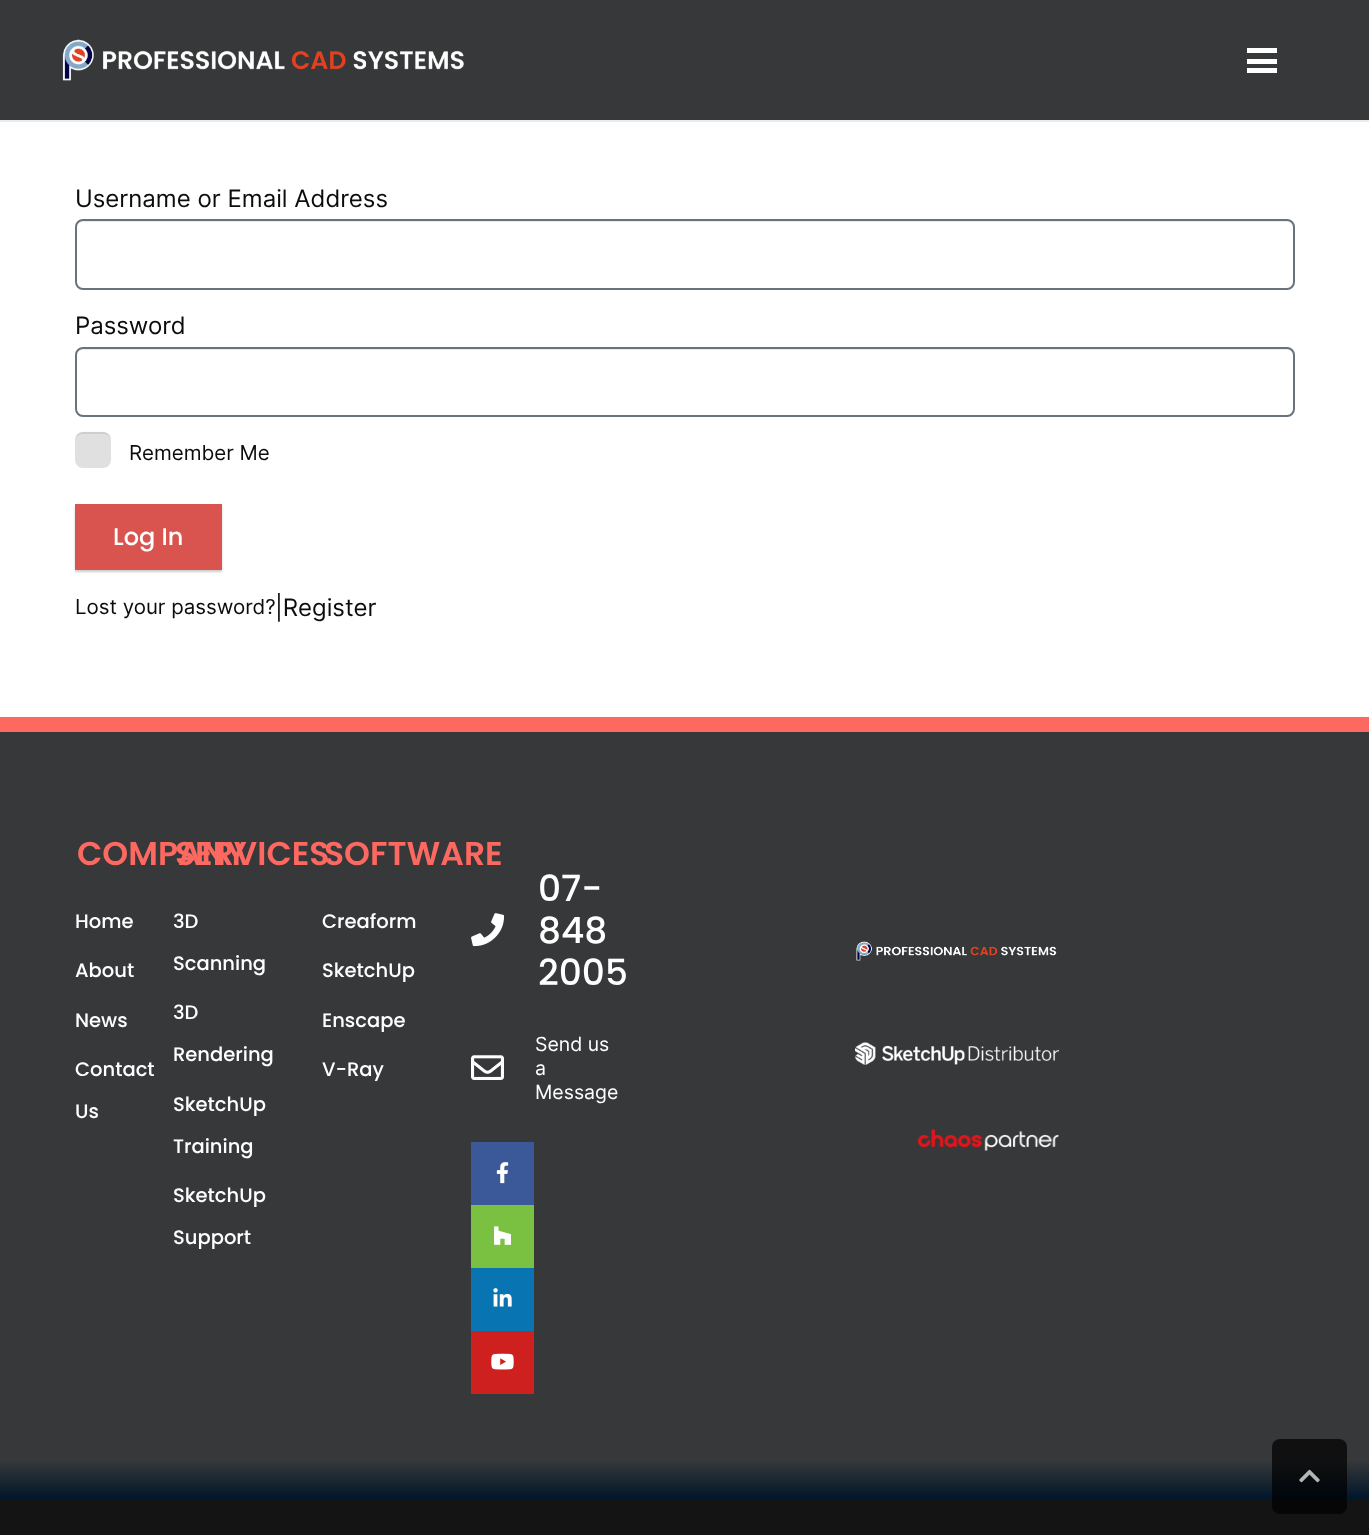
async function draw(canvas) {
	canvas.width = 1369;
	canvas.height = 1535;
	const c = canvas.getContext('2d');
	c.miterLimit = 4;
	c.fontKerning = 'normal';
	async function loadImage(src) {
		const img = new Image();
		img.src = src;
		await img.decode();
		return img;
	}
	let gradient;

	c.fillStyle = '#fff';
	c.fillRect(0, 0, 1369, 1535);
	c.fillStyle = '#ebebeb';
	c.beginPath();
	c.moveTo(0, 120);
	c.lineTo(0, 122);
	c.lineTo(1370, 122);
	c.lineTo(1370, 2);
	c.lineTo(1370, 120);
	c.closePath();
	c.fill();
	c.fillStyle = '#363839';
	c.fillRect(0, 0, 1369, 120);
	c.drawImage(await loadImage('img1.png'), 62, 39, 402, 42);
	for (const [x, y, w, h, color] of [
		[1247, 59, 30, 5, '#fff'],
		[1247, 48, 30, 5, '#fff'],
		[1247, 68, 30, 5, '#fff'],
	]) {
		c.fillStyle = color;
		c.fillRect(x, y, w, h);
	}
	c.font = '24px Inter';
	c.fillStyle = '#0c0c0c';
	c.fillText('Username or Email Address', 75, 207);
	c.fillStyle = '#ebebeb';
	c.beginPath();
	c.moveTo(82, 222);
	c.lineTo(1287, 222);
	c.bezierCurveTo(1290, 222, 1293, 225, 1293, 228);
	c.lineTo(1293, 227);
	c.bezierCurveTo(1293, 224, 1290, 221, 1287, 221);
	c.lineTo(83, 221);
	c.bezierCurveTo(81, 221, 79, 222, 78, 224);
	c.bezierCurveTo(79, 223, 81, 222, 82, 222);
	c.closePath();
	c.fill();
	c.beginPath();
	c.roundRect(76, 220, 1218, 69, 7);
	c.strokeStyle = '#69727d';
	c.lineWidth = 2;
	c.stroke();
	c.fillStyle = '#0c0c0c';
	c.fillText('Password', 75, 334);
	c.fillStyle = '#ebebeb';
	c.beginPath();
	c.moveTo(82, 350);
	c.lineTo(1287, 350);
	c.bezierCurveTo(1290, 350, 1293, 352, 1293, 355);
	c.lineTo(1293, 354);
	c.bezierCurveTo(1293, 351, 1290, 348, 1287, 348);
	c.lineTo(83, 348);
	c.bezierCurveTo(80, 348, 78, 350, 77, 352);
	c.bezierCurveTo(79, 351, 80, 350, 82, 350);
	c.closePath();
	c.fill();
	c.beginPath();
	c.roundRect(76, 348, 1218, 68, 7);
	c.stroke();
	c.fillStyle = '#e0e0e0';
	c.beginPath();
	c.roundRect(75, 432, 36, 36, 8);
	c.fill();
	c.fillStyle = '#00000014';
	c.beginPath();
	c.moveTo(82, 434);
	c.lineTo(104, 434);
	c.bezierCurveTo(108, 434, 111, 437, 111, 441);
	c.bezierCurveTo(111, 430, 100.5, 432, 93, 432);
	c.bezierCurveTo(85.5, 432, 75, 430, 75, 441);
	c.bezierCurveTo(75, 437, 78, 434, 82, 434);
	c.closePath();
	c.fill();
	c.font = '20.5px Inter';
	c.fillStyle = '#0c0c0c';
	c.fillText('Remember Me', 129, 460);
	c.fillStyle = '#00000033';
	c.filter = 'blur(1px)';
	c.beginPath();
	c.rect(75, 506, 147, 66);
	c.fill();
	c.filter = 'none';
	c.fillStyle = '#d9534f';
	c.fillRect(75, 504, 147, 66);
	c.font = '500 24px Poppins';
	c.fillStyle = '#fff';
	c.fillText('Log In', 113, 545);
	c.font = '20.5px Inter';
	c.fillStyle = '#0c0c0c';
	c.fillText('Lost your password?', 75, 614);
	c.font = '24px Inter';
	c.fillText('|Register', 275, 616);
	gradient = c.createLinearGradient(685, 732, 685, 1499);
	gradient.addColorStop(0.95, '#363839');
	gradient.addColorStop(1, '#00162a');
	c.fillStyle = gradient;
	c.fillRect(0, 732, 1369, 767);
	c.fillStyle = '#fd6861';
	c.fillRect(0, 717, 1369, 15);
	c.font = '600 33px Poppins';
	c.fillText('COMPANY', 77, 865);
	c.font = '500 19.5px Poppins';
	c.fillStyle = '#fff';
	for (const [text, x, y] of [
		['Home', 75, 928],
		['About', 75, 977],
		['News', 75, 1027],
		['Contact', 75, 1076],
		['Us', 75, 1118],
	]) {
		c.fillText(text, x, y);
	}
	c.font = '600 33px Poppins';
	c.fillStyle = '#fd6861';
	c.fillText('SERVICES', 175, 865);
	c.font = '500 19.5px Poppins';
	c.fillStyle = '#fff';
	for (const [text, x, y] of [
		['3D', 173, 928],
		['Scanning', 173, 970],
		['3D', 173, 1019],
		['Rendering', 173, 1061],
		['SketchUp', 173, 1111],
		['Training', 173, 1153],
		['SketchUp', 173, 1202],
		['Support', 173, 1244],
	]) {
		c.fillText(text, x, y);
	}
	c.font = '600 33px Poppins';
	c.fillStyle = '#fd6861';
	c.fillText('SOFTWARE', 324, 865);
	c.font = '500 19.5px Poppins';
	c.fillStyle = '#fff';
	for (const [text, x, y] of [
		['Creaform', 322, 928],
		['SketchUp', 322, 977],
		['Enscape', 322, 1027],
		['V-Ray', 322, 1076],
	]) {
		c.fillText(text, x, y);
	}
	c.drawImage(await loadImage('img2.png'), 471, 913, 34, 34);
	c.font = '500 36px Poppins';
	for (const [text, x, y] of [
		['07-', 538, 901],
		['848', 538, 943],
		['2005', 538, 985],
	]) {
		c.fillText(text, x, y);
	}
	c.drawImage(await loadImage('img3.png'), 471, 1055, 33, 25);
	c.font = '19.5px Inter';
	for (const [text, x, y] of [
		['Send us', 535, 1051],
		['a', 535, 1075],
		['Message', 535, 1099],
	]) {
		c.fillText(text, x, y);
	}
	c.fillStyle = '#3b5998';
	c.fillRect(471, 1142, 63, 63);
	c.drawImage(await loadImage('img4.png'), 496, 1162, 13, 22);
	c.fillStyle = '#7ac142';
	c.fillRect(471, 1205, 63, 63);
	c.drawImage(await loadImage('img5.png'), 494, 1226, 18, 19);
	c.fillStyle = '#0874b2';
	c.fillRect(471, 1268, 63, 63);
	c.drawImage(await loadImage('img6.png'), 493, 1288, 19, 19);
	c.fillStyle = '#cd201f';
	c.fillRect(471, 1331, 63, 63);
	c.drawImage(await loadImage('img7.png'), 491, 1353, 23, 17);
	c.drawImage(await loadImage('img8.png'), 856, 941, 201, 20);
	c.drawImage(await loadImage('img9.png'), 855, 1042, 204, 23);
	c.drawImage(await loadImage('img10.png'), 918, 1129, 141, 22);
	c.fillStyle = '#141414';
	c.fillRect(0, 1499, 1369, 36);
	c.fillStyle = '#000000b3';
	c.beginPath();
	c.roundRect(1272, 1439, 75, 75, 8);
	c.fill();
	c.drawImage(await loadImage('img11.png'), 1299, 1469, 21, 14);
}

draw(document.querySelector('canvas'));
